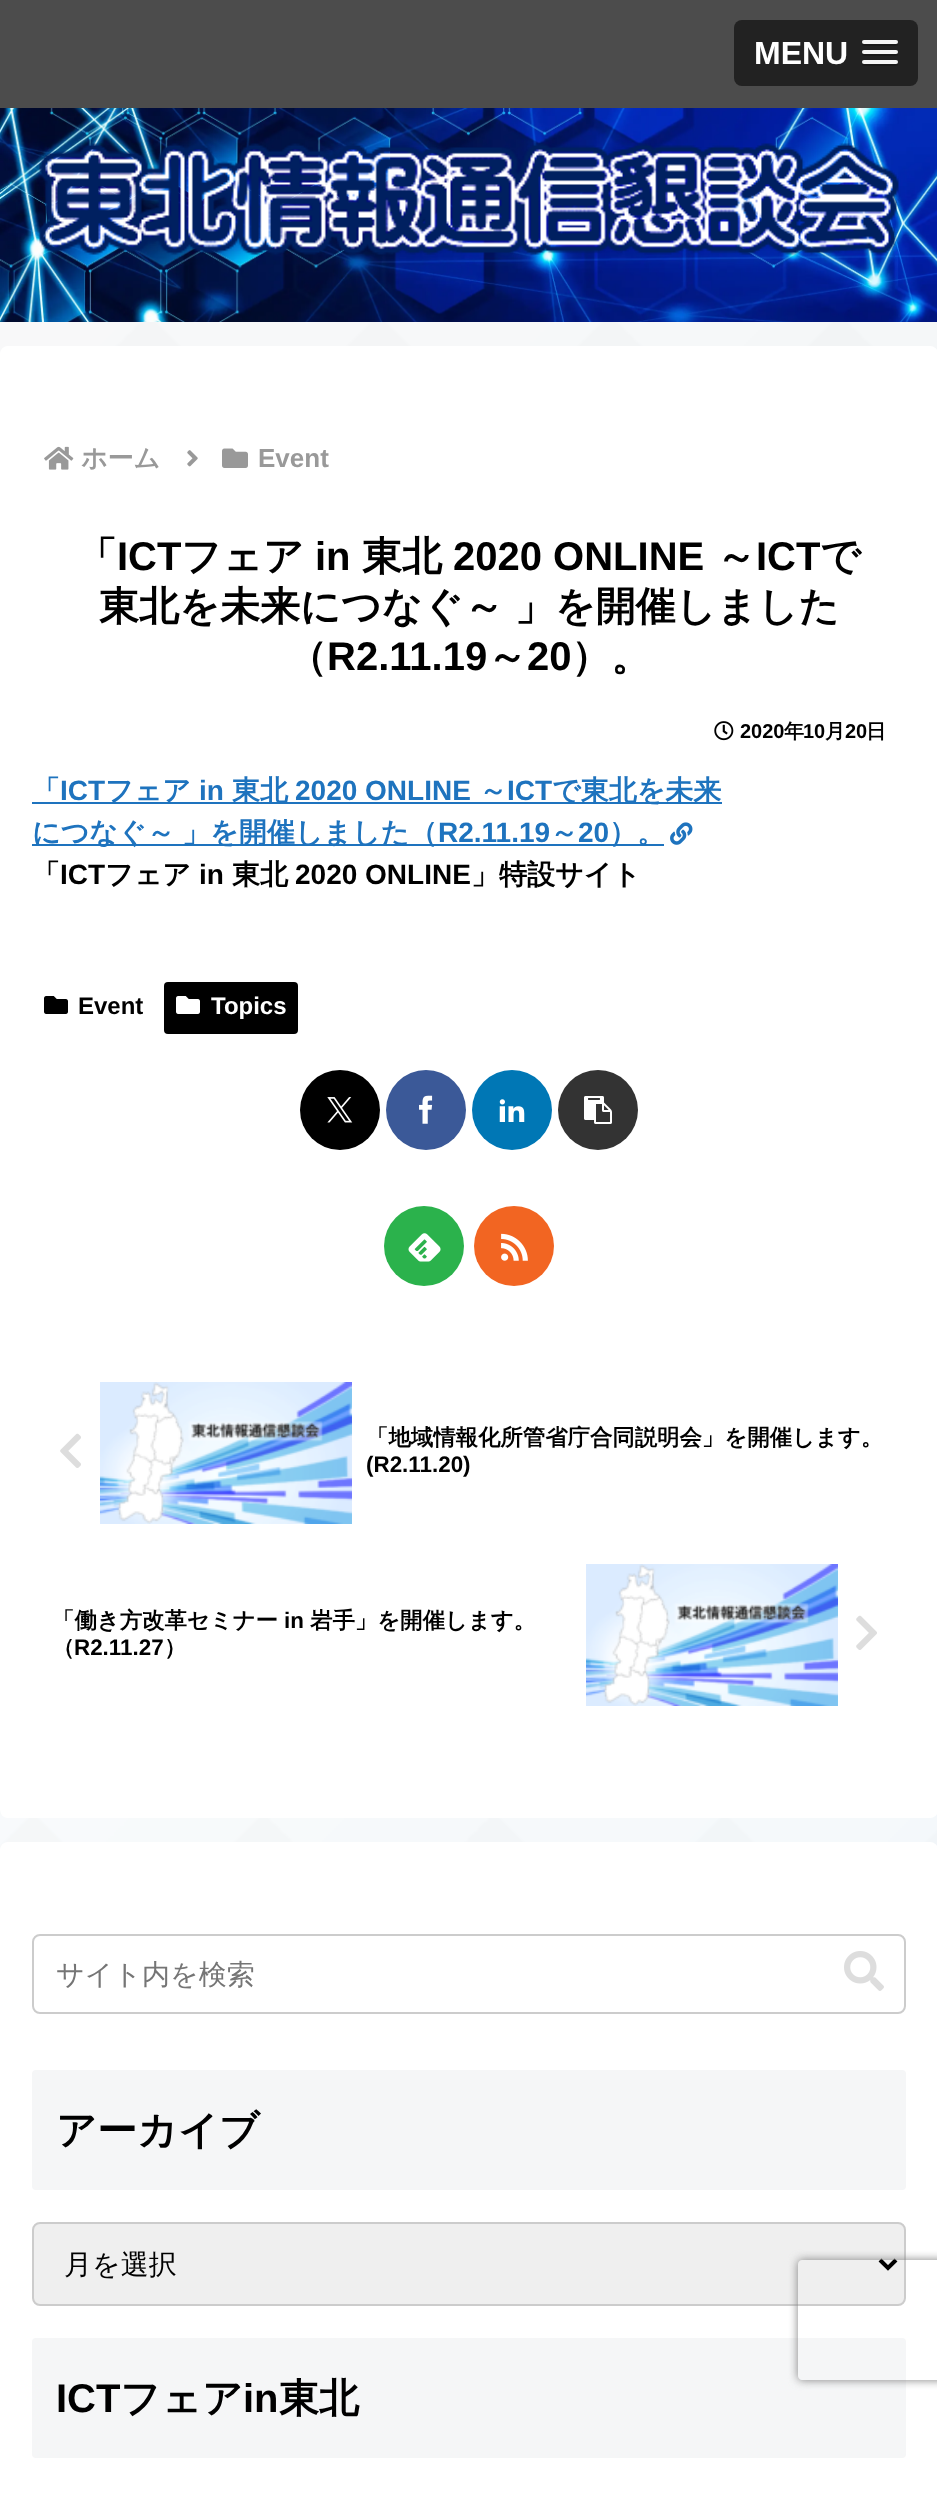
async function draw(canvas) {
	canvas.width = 937;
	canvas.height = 2499;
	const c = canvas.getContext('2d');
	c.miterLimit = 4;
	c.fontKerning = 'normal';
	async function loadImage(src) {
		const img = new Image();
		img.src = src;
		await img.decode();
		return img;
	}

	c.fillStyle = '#fff';
	c.fillRect(0, 0, 937, 2499);
	c.drawImage(await loadImage('img1.png'), 0, 322, 937, 1528);
	c.fillStyle = '#4c4c4c';
	c.fillRect(0, 0, 937, 108);
	c.fillStyle = '#222';
	c.beginPath();
	c.roundRect(734, 20, 184, 66, 8);
	c.fill();
	c.font = 'bold 32px Liberation Sans';
	c.fillStyle = '#fff';
	c.fillText('MENU', 754, 64);
	c.fillStyle = '#1a1a1a';
	c.beginPath();
	c.moveTo(862.5, 43);
	c.bezierCurveTo(860, 47, 869, 46, 869.5, 46);
	c.lineTo(890.5, 46);
	c.bezierCurveTo(891, 46, 900, 47, 897.5, 43);
	c.bezierCurveTo(897.5, 43.5, 896.5, 44, 896, 44);
	c.lineTo(864, 44);
	c.bezierCurveTo(863.5, 44, 862.5, 43.5, 862.5, 43);
	c.closePath();
	c.fill();
	c.fillStyle = '#f5f5f5';
	c.beginPath();
	c.roundRect(862, 40, 36, 4, 2);
	c.fill();
	c.fillStyle = '#1a1a1a';
	c.beginPath();
	c.moveTo(862.5, 53);
	c.bezierCurveTo(860, 57, 869, 56, 869.5, 56);
	c.lineTo(890.5, 56);
	c.bezierCurveTo(891, 56, 900, 57, 897.5, 53);
	c.bezierCurveTo(897.5, 53.5, 896.5, 54, 896, 54);
	c.lineTo(864, 54);
	c.bezierCurveTo(863.5, 54, 862.5, 53.5, 862.5, 53);
	c.closePath();
	c.fill();
	c.fillStyle = '#f5f5f5';
	c.beginPath();
	c.roundRect(862, 50, 36, 4, 2);
	c.fill();
	c.fillStyle = '#1a1a1a';
	c.beginPath();
	c.moveTo(862.5, 63);
	c.bezierCurveTo(860, 67, 869, 66, 869.5, 66);
	c.lineTo(890.5, 66);
	c.bezierCurveTo(891, 66, 900, 67, 897.5, 63);
	c.bezierCurveTo(897.5, 63.5, 896.5, 64, 896, 64);
	c.lineTo(864, 64);
	c.bezierCurveTo(863.5, 64, 862.5, 63.5, 862.5, 63);
	c.closePath();
	c.fill();
	c.fillStyle = '#f5f5f5';
	c.beginPath();
	c.roundRect(862, 60, 36, 4, 2);
	c.fill();
	c.drawImage(await loadImage('img2.png'), 0, 108, 937, 214);
	c.drawImage(await loadImage('img3.png'), 37, 143, 862, 112);
	c.fillStyle = '#fff';
	c.beginPath();
	c.roundRect(0, 346, 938, 1472, 8);
	c.fill();
	c.drawImage(await loadImage('img4.png'), 44, 446, 30, 24);
	c.font = 'bold 26px WenQuanYi Zen Hei';
	c.fillStyle = '#999';
	c.fillText('ホーム', 81, 467);
	c.drawImage(await loadImage('img5.png'), 187, 450, 11, 17);
	c.drawImage(await loadImage('img6.png'), 222, 448, 26, 20);
	c.font = 'bold 26px Liberation Sans';
	c.fillText('Event', 258, 467);
	c.font = 'bold 40px WenQuanYi Zen Hei';
	c.fillStyle = '#000';
	c.fillText('「', 77, 570);
	c.font = 'bold 40px Liberation Sans';
	c.fillText('ICT', 117, 570);
	c.font = 'bold 40px WenQuanYi Zen Hei';
	c.fillText('フェア', 181, 570);
	c.font = 'bold 40px Liberation Sans';
	c.fillText('in', 315, 570);
	c.font = 'bold 40px WenQuanYi Zen Hei';
	c.fillText('東北', 362, 570);
	c.font = 'bold 40px Liberation Sans';
	c.fillText('2020 ONLINE', 453, 570);
	c.font = 'bold 40px WenQuanYi Zen Hei';
	c.fillText('～', 716, 570);
	c.font = 'bold 40px Liberation Sans';
	c.fillText('ICT', 756, 570);
	c.font = 'bold 40px WenQuanYi Zen Hei';
	c.fillText('で', 820, 570);
	c.wordSpacing = '-1px';
	c.fillText('東北を未来につなぐ～ 」を開催しました', 99, 620);
	c.wordSpacing = '0px';
	c.fillText('（', 287, 670);
	c.font = 'bold 40px Liberation Sans';
	c.fillText('R2.11.19', 327, 670);
	c.font = 'bold 40px WenQuanYi Zen Hei';
	c.fillText('～', 487, 670);
	c.font = 'bold 40px Liberation Sans';
	c.fillText('20', 527, 670);
	c.font = 'bold 40px WenQuanYi Zen Hei';
	c.fillText('）。', 571, 670);
	c.drawImage(await loadImage('img7.png'), 714, 721, 20, 20);
	c.font = 'bold 20px Liberation Sans';
	c.fillText('2020', 740, 738);
	c.font = 'bold 20px WenQuanYi Zen Hei';
	c.fillText('年', 784, 738);
	c.font = 'bold 20px Liberation Sans';
	c.fillText('10', 803, 738);
	c.font = 'bold 20px WenQuanYi Zen Hei';
	c.fillText('月', 825, 738);
	c.font = 'bold 20px Liberation Sans';
	c.fillText('20', 845, 738);
	c.font = 'bold 20px WenQuanYi Zen Hei';
	c.fillText('日', 866, 738);
	c.font = 'bold 28px WenQuanYi Zen Hei';
	c.fillStyle = '#1e73be';
	c.fillText('「', 32, 800);
	c.font = 'bold 28px Liberation Sans';
	c.fillText('ICT', 60, 800);
	c.fillRect(32, 802, 690, 2);
	c.font = 'bold 28px WenQuanYi Zen Hei';
	c.fillText('フェア', 105, 800);
	c.font = 'bold 28px Liberation Sans';
	c.fillText('in', 199, 800);
	c.font = 'bold 28px WenQuanYi Zen Hei';
	c.fillText('東北', 232, 800);
	c.font = 'bold 28px Liberation Sans';
	c.fillText('2020 ONLINE', 295, 800);
	c.font = 'bold 28px WenQuanYi Zen Hei';
	c.fillText('～', 479, 800);
	c.font = 'bold 28px Liberation Sans';
	c.fillText('ICT', 507, 800);
	c.font = 'bold 28px WenQuanYi Zen Hei';
	c.fillText('で東北を未来', 552, 800);
	c.fillRect(32, 844, 632, 2);
	c.wordSpacing = '-1px';
	c.fillText('につなぐ～ 」を開催しました（', 32, 842);
	c.wordSpacing = '0px';
	c.font = 'bold 28px Liberation Sans';
	c.fillText('R2.11.19', 438, 842);
	c.font = 'bold 28px WenQuanYi Zen Hei';
	c.fillText('～', 550, 842);
	c.font = 'bold 28px Liberation Sans';
	c.fillText('20', 578, 842);
	c.font = 'bold 28px WenQuanYi Zen Hei';
	c.fillText('）。', 609, 842);
	c.drawImage(await loadImage('img8.png'), 670, 822, 23, 23);
	c.fillStyle = '#000';
	c.fillText('「', 32, 884);
	c.font = 'bold 28px Liberation Sans';
	c.fillText('ICT', 60, 884);
	c.font = 'bold 28px WenQuanYi Zen Hei';
	c.fillText('フェア', 105, 884);
	c.font = 'bold 28px Liberation Sans';
	c.fillText('in', 199, 884);
	c.font = 'bold 28px WenQuanYi Zen Hei';
	c.fillText('東北', 232, 884);
	c.font = 'bold 28px Liberation Sans';
	c.fillText('2020 ONLINE', 295, 884);
	c.font = 'bold 28px WenQuanYi Zen Hei';
	c.fillText('」特設サイト', 471, 884);
	c.drawImage(await loadImage('img9.png'), 44, 996, 24, 18);
	c.font = 'bold 24px Liberation Sans';
	c.fillText('Event', 78, 1014);
	c.beginPath();
	c.roundRect(164, 982, 134, 52, 4);
	c.fill();
	c.drawImage(await loadImage('img10.png'), 176, 996, 24, 18);
	c.fillStyle = '#fff';
	c.fillText('Topics', 211, 1014);
	c.fillStyle = '#000';
	c.beginPath();
	c.arc(340, 1110, 40, 0, 2 * Math.PI);
	c.fill();
	c.drawImage(await loadImage('img11.png'), 327, 1097, 26, 26);
	c.fillStyle = '#3b5998';
	c.beginPath();
	c.arc(426, 1110, 40, 0, 2 * Math.PI);
	c.fill();
	c.drawImage(await loadImage('img12.png'), 419, 1095, 14, 29);
	c.fillStyle = '#0077b5';
	c.beginPath();
	c.arc(512, 1110, 40, 0, 2 * Math.PI);
	c.fill();
	c.drawImage(await loadImage('img13.png'), 499, 1099, 26, 23);
	c.fillStyle = '#333';
	c.beginPath();
	c.arc(598, 1110, 40, 0, 2 * Math.PI);
	c.fill();
	c.drawImage(await loadImage('img14.png'), 584, 1096, 28, 28);
	c.fillStyle = '#2bb24c';
	c.beginPath();
	c.arc(424, 1246, 40, 0, 2 * Math.PI);
	c.fill();
	c.drawImage(await loadImage('img15.png'), 408, 1233, 33, 29);
	c.fillStyle = '#f26522';
	c.beginPath();
	c.arc(514, 1246, 40, 0, 2 * Math.PI);
	c.fill();
	c.drawImage(await loadImage('img16.png'), 501, 1233, 27, 28);
	c.drawImage(await loadImage('img17.png'), 60, 1433, 21, 35);
	c.drawImage(await loadImage('img18.png'), 100, 1382, 252, 142);
	c.font = 'bold 22.4px WenQuanYi Zen Hei';
	c.fillStyle = '#000';
	c.fillText('「地域情報化所管省庁合同説明会」を開催します。', 366, 1445);
	c.font = 'bold 22.4px Liberation Sans';
	c.fillText('(R2.11.20)', 366, 1472);
	c.font = 'bold 22.4px WenQuanYi Zen Hei';
	c.fillText('「働き方改革セミナー', 52, 1628);
	c.font = 'bold 22.4px Liberation Sans';
	c.fillText('in', 284, 1628);
	c.font = 'bold 22.4px WenQuanYi Zen Hei';
	c.fillText('岩手」を開催します。', 310, 1628);
	c.fillText('（', 52, 1655);
	c.font = 'bold 22.4px Liberation Sans';
	c.fillText('R2.11.27', 74, 1655);
	c.font = 'bold 22.4px WenQuanYi Zen Hei';
	c.fillText('）', 164, 1655);
	c.drawImage(await loadImage('img19.png'), 586, 1564, 252, 142);
	c.drawImage(await loadImage('img20.png'), 856, 1615, 21, 35);
	c.fillStyle = '#fff';
	c.beginPath();
	c.roundRect(0, 1842, 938, 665, 8);
	c.fill();
	c.beginPath();
	c.roundRect(33, 1935, 872, 78, 7);
	c.strokeStyle = '#ccc';
	c.lineWidth = 2;
	c.stroke();
	c.font = '500 28px WenQuanYi Zen Hei';
	c.fillStyle = '#757575';
	c.fillText('サイト内を検索', 56, 1984);
	c.drawImage(await loadImage('img21.png'), 844, 1951, 40, 40);
	c.fillStyle = '#f5f6f7';
	c.beginPath();
	c.roundRect(32, 2070, 874, 120, 4);
	c.fill();
	c.font = 'bold 40px WenQuanYi Zen Hei';
	c.fillStyle = '#000';
	c.fillText('アーカイブ', 56, 2144);
	c.fillStyle = '#efefef';
	c.beginPath();
	c.roundRect(33, 2223, 872, 82, 7);
	c.fill();
	c.stroke();
	c.beginPath();
	c.moveTo(880, 2260);
	c.lineTo(888, 2268);
	c.lineTo(896, 2260);
	c.strokeStyle = '#000';
	c.lineWidth = 4;
	c.stroke();
	c.font = '500 28px WenQuanYi Zen Hei';
	c.fillStyle = '#000';
	c.fillText('月を選択', 64, 2274);
	c.fillStyle = '#f5f6f7';
	c.beginPath();
	c.roundRect(32, 2338, 874, 120, 4);
	c.fill();
	c.font = 'bold 40px Liberation Sans';
	c.fillStyle = '#000';
	c.fillText('ICT', 56, 2412);
	c.font = 'bold 40px WenQuanYi Zen Hei';
	c.fillText('フェア', 120, 2412);
	c.font = 'bold 40px Liberation Sans';
	c.fillText('in', 243, 2412);
	c.font = 'bold 40px WenQuanYi Zen Hei';
	c.fillText('東北', 279, 2412);
	c.save();
	c.beginPath();
	c.moveTo(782, 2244);
	c.lineTo(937, 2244);
	c.lineTo(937, 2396);
	c.lineTo(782, 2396);
	c.closePath();
	c.moveTo(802, 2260);
	c.lineTo(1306, 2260);
	c.bezierCurveTo(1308, 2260, 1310, 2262, 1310, 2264);
	c.lineTo(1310, 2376);
	c.bezierCurveTo(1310, 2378, 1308, 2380, 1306, 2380);
	c.lineTo(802, 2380);
	c.bezierCurveTo(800, 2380, 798, 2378, 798, 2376);
	c.lineTo(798, 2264);
	c.bezierCurveTo(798, 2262, 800, 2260, 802, 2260);
	c.closePath();
	c.clip('evenodd');
	c.fillStyle = '#808080';
	c.filter = 'blur(5px)';
	c.beginPath();
	c.roundRect(798, 2260, 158, 120, 4);
	c.fill();
	c.filter = 'none';
	c.restore();
}

draw(document.querySelector('canvas'));
